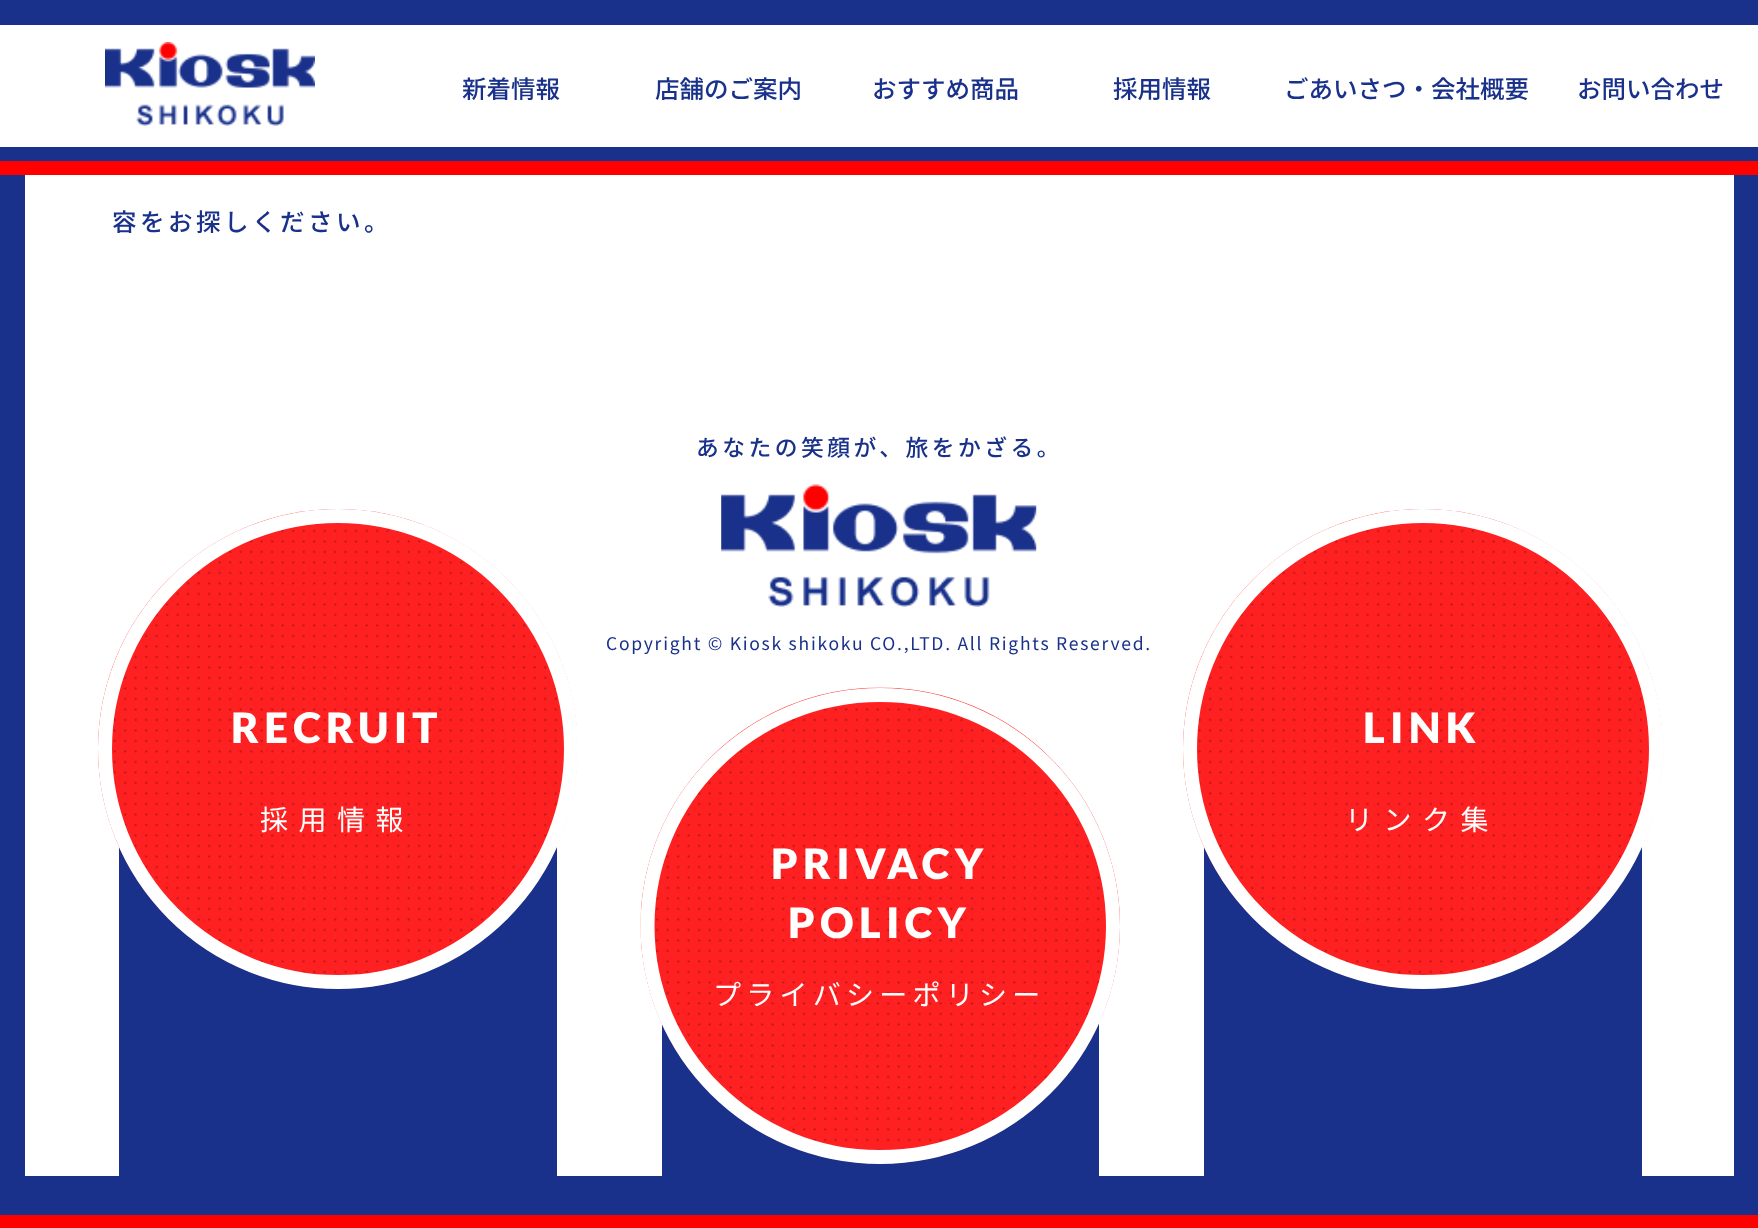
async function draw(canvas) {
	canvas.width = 1758;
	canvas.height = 1228;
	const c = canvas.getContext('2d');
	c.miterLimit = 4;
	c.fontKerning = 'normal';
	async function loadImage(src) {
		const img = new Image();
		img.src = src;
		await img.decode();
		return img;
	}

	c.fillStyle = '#fff';
	c.fillRect(0, 0, 1758, 1228);
	for (const [x, y, w, h, color] of [
		[0, 0, 25, 1176, '#19318b'],
		[25, 0, 1709, 25, '#19318b'],
		[1734, 0, 24, 1176, '#19318b'],
		[0, 25, 1758, 122, '#fff'],
		[25, 147, 1709, 14, '#19318b'],
	]) {
		c.fillStyle = color;
		c.fillRect(x, y, w, h);
	}
	c.drawImage(await loadImage('img1.png'), 105, 42, 210, 84);
	c.font = '500 24.5px Noto Sans JP';
	for (const [text, x, y] of [
		['新着情報', 462, 98],
		['店舗のご案内', 655, 98],
		['おすすめ商品', 872, 98],
		['採用情報', 1113, 98],
		['ごあいさつ・会社概要', 1284, 98],
		['お問い合わせ', 1577, 98],
	]) {
		c.fillText(text, x, y);
	}
	c.fillStyle = '#f00';
	c.fillRect(0, 161, 1758, 14);
	c.letterSpacing = '3.5px';
	c.fillStyle = '#19318b';
	c.fillText('容をお探しください。', 112, 231);
	c.font = '500 22.75px Noto Sans JP';
	c.fillText('あなたの笑顔が、旅をかざる。', 696, 456);
	c.drawImage(await loadImage('img2.png'), 721, 484, 316, 123);
	c.letterSpacing = '1.75px';
	c.font = '17.5px Noto Sans JP';
	c.fillText('Copyright © Kiosk shikoku CO.,LTD. All Rights Reserved.', 606, 650);
	c.fillRect(119, 847, 438, 329);
	c.drawImage(await loadImage('img3.png'), 98, 509, 480, 480);
	c.beginPath();
	c.arc(338, 749, 233, 0, 2 * Math.PI);
	c.strokeStyle = '#fff';
	c.lineWidth = 14;
	c.stroke();
	c.letterSpacing = '5.25px';
	c.font = '900 42px Lato';
	c.fillStyle = '#fff';
	c.fillText('RECRUIT', 231, 743);
	c.letterSpacing = '10.5px';
	c.font = '28px Noto Sans JP';
	c.fillText('採用情報', 260, 830);
	c.fillStyle = '#19318b';
	c.fillRect(1204, 847, 438, 329);
	c.drawImage(await loadImage('img3.png'), 1183, 509, 480, 480);
	c.beginPath();
	c.arc(1423, 749, 233, 0, 2 * Math.PI);
	c.stroke();
	c.letterSpacing = '5.25px';
	c.font = '900 42px Lato';
	c.fillStyle = '#fff';
	c.fillText('LINK', 1363, 743);
	c.letterSpacing = '10.5px';
	c.font = '28px Noto Sans JP';
	c.fillText('リンク集', 1345, 830);
	c.fillStyle = '#19318b';
	c.fillRect(662, 1023, 437, 153);
	c.drawImage(await loadImage('img4.png'), 640, 687, 480, 477);
	c.beginPath();
	c.moveTo(880, 695);
	c.bezierCurveTo(1009, 695, 1113, 798, 1113, 926);
	c.bezierCurveTo(1113, 1053.5, 1009, 1157, 880, 1157);
	c.bezierCurveTo(751.5, 1157, 647.5, 1053.5, 647.5, 926);
	c.bezierCurveTo(647.5, 798, 751.5, 695, 880, 695);
	c.closePath();
	c.stroke();
	c.letterSpacing = '5.25px';
	c.font = '900 42px Lato';
	c.fillStyle = '#fff';
	c.fillText('PRIVACY', 771, 879);
	c.fillText('POLICY', 788, 938);
	c.font = '28px Noto Sans JP';
	c.fillText('プライバシーポリシー', 713, 1005);
	c.fillStyle = '#19318b';
	c.fillRect(0, 1176, 1758, 39);
	c.fillStyle = '#f00';
	c.fillRect(0, 1215, 1758, 13);
}

draw(document.querySelector('canvas'));
